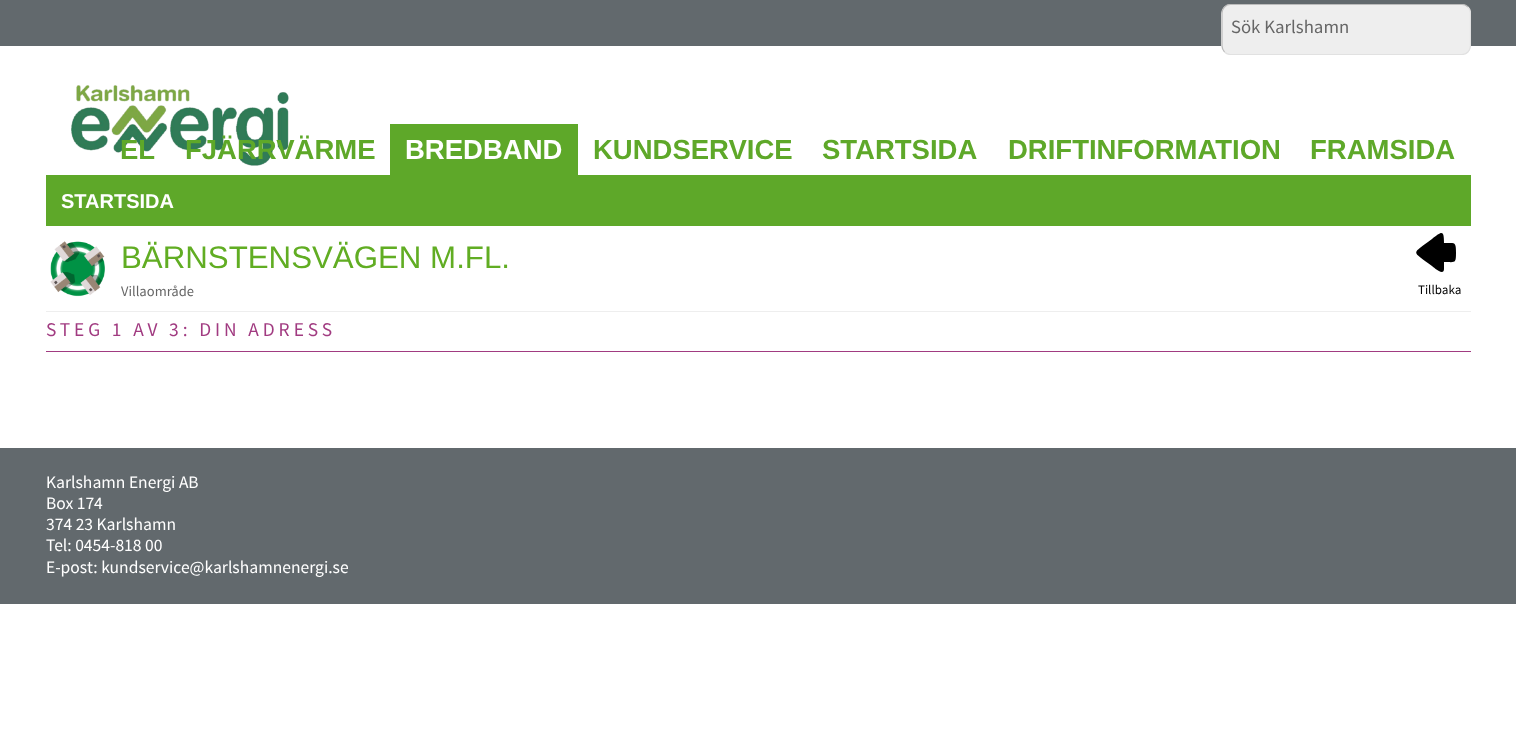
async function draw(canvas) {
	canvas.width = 1516;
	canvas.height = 729;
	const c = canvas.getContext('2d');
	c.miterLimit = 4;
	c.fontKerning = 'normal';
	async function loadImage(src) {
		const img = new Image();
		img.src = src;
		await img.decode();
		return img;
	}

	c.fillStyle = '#fff';
	c.fillRect(0, 0, 1516, 729);
	c.fillStyle = '#62696d';
	c.fillRect(0, 0, 1516, 46);
	c.fillStyle = '#eee';
	c.beginPath();
	c.roundRect(1221, 4, 250, 51, 10);
	c.fill();
	c.save();
	c.beginPath();
	c.rect(1221, 4, 250, 51);
	c.clip();
	c.beginPath();
	c.moveTo(1468, 7);
	c.bezierCurveTo(1469.5, 8.5, 1470.5, 11, 1470.5, 13);
	c.lineTo(1470.5, 45.5);
	c.bezierCurveTo(1470.5, 48, 1469.5, 50, 1468, 52);
	c.bezierCurveTo(1466.5, 53.5, 1464, 54.5, 1462, 54.5);
	c.lineTo(1230.5, 54.5);
	c.bezierCurveTo(1228.5, 54.5, 1226, 53.5, 1224.5, 52);
	c.strokeStyle = '#e1e1e1';
	c.lineWidth = 1.2;
	c.stroke();
	c.beginPath();
	c.moveTo(1224.5, 52);
	c.bezierCurveTo(1223, 50, 1222, 48, 1222, 45.5);
	c.lineTo(1222, 13);
	c.bezierCurveTo(1222, 11, 1223, 8.5, 1224.5, 7);
	c.bezierCurveTo(1226, 5.5, 1228.5, 4.5, 1230.5, 4.5);
	c.lineTo(1462, 4.5);
	c.bezierCurveTo(1464, 4.5, 1466.5, 5.5, 1468, 7);
	c.strokeStyle = '#bbb';
	c.stroke();
	c.restore();
	c.font = '18.75px Source Sans Pro';
	c.fillStyle = '#666';
	c.fillText('Sök Karlshamn', 1231, 33);
	c.drawImage(await loadImage('img1.png'), 71, 85, 218, 81);
	c.font = 'bold 27.5px Liberation Sans';
	c.fillStyle = '#5ea829';
	c.fillText('EL', 120, 159);
	c.fillText('FJÄRRVÄRME', 185, 159);
	c.fillRect(390, 124, 188, 51);
	c.fillStyle = '#fff';
	c.fillText('BREDBAND', 405, 159);
	c.fillStyle = '#5ea829';
	for (const [text, x, y] of [
		['KUNDSERVICE', 593, 159],
		['STARTSIDA', 822, 159],
		['DRIFTINFORMATION', 1008, 159],
		['FRAMSIDA', 1310, 159],
	]) {
		c.fillText(text, x, y);
	}
	c.fillRect(46, 175, 1425, 51);
	c.font = 'bold 20px Liberation Sans';
	c.fillStyle = '#fff';
	c.fillText('STARTSIDA', 61, 208);
	c.fillStyle = '#eee';
	c.fillRect(46, 311, 1425, 1);
	c.drawImage(await loadImage('img2.png'), 50, 241, 55, 56);
	c.font = '31.25px Liberation Sans';
	c.fillStyle = '#61ad23';
	c.fillText('BÄRNSTENSVÄGEN M.FL.', 121, 268);
	c.font = '14.5px Source Sans Pro';
	c.fillStyle = '#666';
	c.fillText('Villaområde', 121, 296);
	c.fillStyle = '#000';
	c.beginPath();
	c.moveTo(1444, 262);
	c.bezierCurveTo(1455, 262, 1456, 264, 1456, 253);
	c.bezierCurveTo(1456, 241, 1455, 243, 1444, 243);
	c.bezierCurveTo(1444, 230, 1442, 231, 1432, 239);
	c.bezierCurveTo(1411, 255, 1411, 250, 1432, 266);
	c.bezierCurveTo(1432, 266, 1444, 277, 1444, 269);
	c.closePath();
	c.fill();
	c.font = '13px Source Sans Pro';
	c.fillText('Tillbaka', 1418, 294);
	c.fillStyle = '#a13b81';
	c.fillRect(46, 351, 1425, 1);
	c.letterSpacing = '3.9px';
	c.font = '19.5px Source Sans Pro';
	c.fillText('STEG 1 AV 3: DIN ADRESS', 46, 336);
	c.fillStyle = '#62696d';
	c.fillRect(0, 448, 1516, 156);
	c.letterSpacing = '0px';
	c.font = '17.5px Source Sans Pro';
	c.fillStyle = '#fff';
	for (const [text, x, y] of [
		['Karlshamn Energi AB', 46, 488],
		['Box 174', 46, 509],
		['374 23 Karlshamn', 46, 530],
		['Tel: 0454-818 00', 46, 551],
		['E-post: kundservice@karlshamnenergi.se', 46, 573],
	]) {
		c.fillText(text, x, y);
	}
}

draw(document.querySelector('canvas'));
